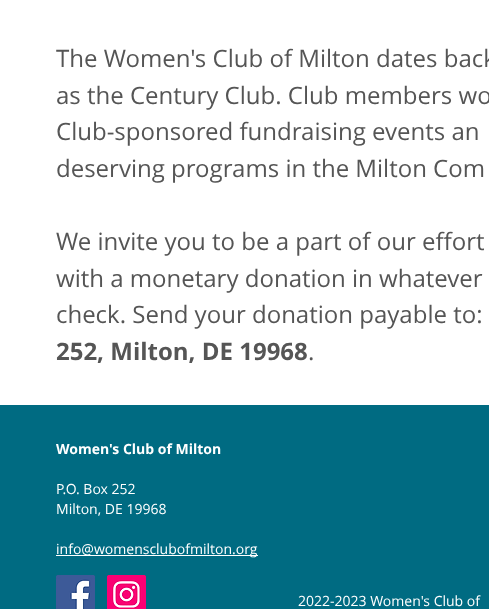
async function draw(canvas) {
	canvas.width = 489;
	canvas.height = 609;
	const c = canvas.getContext('2d');
	c.miterLimit = 4;
	c.fontKerning = 'normal';
	async function loadImage(src) {
		const img = new Image();
		img.src = src;
		await img.decode();
		return img;
	}

	c.fillStyle = '#fff';
	c.fillRect(0, 0, 489, 609);
	c.font = '24px Open Sans';
	c.fillStyle = '#555';
	for (const [text, x, y] of [
		['The Women\'s Club of Milton dates back', 56, 67],
		['as the Century Club. Club members wo', 56, 104],
		['Club-sponsored fundraising events an', 56, 140],
		['deserving programs in the Milton Com', 56, 177],
		['We invite you to be a part of our effort', 56, 250],
		['with a monetary donation in whatever', 56, 287],
		['check. Send your donation payable to:', 56, 323],
	]) {
		c.fillText(text, x, y);
	}
	c.font = 'bold 24px Open Sans';
	c.fillText('252, Milton, DE 19968', 56, 360);
	c.font = '24px Open Sans';
	c.fillText('.', 308, 360);
	c.fillStyle = '#006b82';
	c.fillRect(0, 405, 489, 204);
	c.font = 'bold 14px Open Sans';
	c.fillStyle = '#fff';
	c.fillText('Women\'s Club of Milton', 56, 454);
	c.font = '14px Open Sans';
	c.fillText('P.O. Box 252', 56, 494);
	c.fillText('Milton, DE 19968', 56, 514);
	c.fillRect(56, 555, 202, 1);
	c.fillText('info@womensclubofmilton.org', 56, 554);
	c.drawImage(await loadImage('img1.png'), 56, 575, 39, 34);
	c.drawImage(await loadImage('img2.png'), 107, 575, 39, 34);
	c.fillText('2022-2023 Women\'s Club of', 298, 606);
}

draw(document.querySelector('canvas'));
